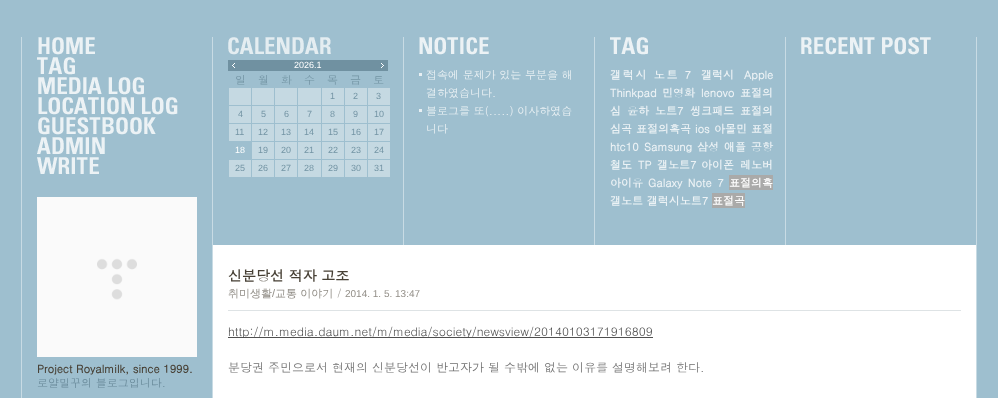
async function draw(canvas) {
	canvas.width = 998;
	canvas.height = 398;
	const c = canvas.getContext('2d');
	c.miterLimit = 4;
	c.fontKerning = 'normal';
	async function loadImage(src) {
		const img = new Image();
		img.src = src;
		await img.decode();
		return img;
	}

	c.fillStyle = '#9ebfcf';
	c.fillRect(0, 0, 998, 398);
	c.drawImage(await loadImage('img1.png'), 21, 37, 956, 361);
	c.drawImage(await loadImage('img2.png'), 801, 37, 130, 18);
	c.drawImage(await loadImage('img3.png'), 228, 37, 103, 18);
	c.fillStyle = '#7091a1';
	c.fillRect(228, 60, 160, 11);
	c.drawImage(await loadImage('img4.png'), 232, 63, 3, 5);
	c.font = '9px Liberation Sans';
	c.fillStyle = '#fff';
	c.fillText('2026.1', 294, 68);
	c.drawImage(await loadImage('img5.png'), 381, 63, 3, 5);
	c.font = '11px Dotum';
	c.fillStyle = '#7394a4';
	for (const [text, x, y] of [
		['일', 235, 84],
		['월', 258, 84],
		['화', 281, 84],
		['수', 304, 84],
		['목', 327, 84],
		['금', 350, 84],
		['토', 373, 84],
	]) {
		c.fillText(text, x, y);
	}
	for (const [x, y, w, h, color] of [
		[229, 88, 22, 17, '#c5d9e2'],
		[252, 88, 22, 17, '#c5d9e2'],
		[275, 88, 22, 17, '#c5d9e2'],
		[298, 88, 23, 17, '#c5d9e2'],
		[322, 88, 22, 17, '#c5d9e2'],
	]) {
		c.fillStyle = color;
		c.fillRect(x, y, w, h);
	}
	c.font = '9px Liberation Sans';
	c.fillStyle = '#7394a4';
	c.fillText('1', 330, 99);
	c.fillStyle = '#c5d9e2';
	c.fillRect(345, 88, 22, 17);
	c.fillStyle = '#7394a4';
	c.fillText('2', 353, 99);
	c.fillStyle = '#c5d9e2';
	c.fillRect(368, 88, 22, 17);
	c.fillStyle = '#7394a4';
	c.fillText('3', 376, 99);
	c.fillStyle = '#c5d9e2';
	c.fillRect(229, 106, 22, 17);
	c.fillStyle = '#7394a4';
	c.fillText('4', 238, 117);
	c.fillStyle = '#c5d9e2';
	c.fillRect(252, 106, 22, 17);
	c.fillStyle = '#7394a4';
	c.fillText('5', 261, 117);
	c.fillStyle = '#c5d9e2';
	c.fillRect(275, 106, 22, 17);
	c.fillStyle = '#7394a4';
	c.fillText('6', 284, 117);
	c.fillStyle = '#c5d9e2';
	c.fillRect(298, 106, 23, 17);
	c.fillStyle = '#7394a4';
	c.fillText('7', 307, 117);
	c.fillStyle = '#c5d9e2';
	c.fillRect(322, 106, 22, 17);
	c.fillStyle = '#7394a4';
	c.fillText('8', 330, 117);
	c.fillStyle = '#c5d9e2';
	c.fillRect(345, 106, 22, 17);
	c.fillStyle = '#7394a4';
	c.fillText('9', 353, 117);
	c.fillStyle = '#c5d9e2';
	c.fillRect(368, 106, 22, 17);
	c.fillStyle = '#7394a4';
	c.fillText('10', 374, 117);
	c.fillStyle = '#c5d9e2';
	c.fillRect(229, 124, 22, 17);
	c.fillStyle = '#7394a4';
	c.fillText('11', 235, 135);
	c.fillStyle = '#c5d9e2';
	c.fillRect(252, 124, 22, 17);
	c.fillStyle = '#7394a4';
	c.fillText('12', 258, 135);
	c.fillStyle = '#c5d9e2';
	c.fillRect(275, 124, 22, 17);
	c.fillStyle = '#7394a4';
	c.fillText('13', 281, 135);
	c.fillStyle = '#c5d9e2';
	c.fillRect(298, 124, 23, 17);
	c.fillStyle = '#7394a4';
	c.fillText('14', 304, 135);
	c.fillStyle = '#c5d9e2';
	c.fillRect(322, 124, 22, 17);
	c.fillStyle = '#7394a4';
	c.fillText('15', 328, 135);
	c.fillStyle = '#c5d9e2';
	c.fillRect(345, 124, 22, 17);
	c.fillStyle = '#7394a4';
	c.fillText('16', 351, 135);
	c.fillStyle = '#c5d9e2';
	c.fillRect(368, 124, 22, 17);
	c.fillStyle = '#7394a4';
	c.fillText('17', 374, 135);
	c.fillStyle = '#fff';
	c.fillText('18', 235, 153);
	c.fillStyle = '#c5d9e2';
	c.fillRect(252, 142, 22, 17);
	c.fillStyle = '#7394a4';
	c.fillText('19', 258, 153);
	c.fillStyle = '#c5d9e2';
	c.fillRect(275, 142, 22, 17);
	c.fillStyle = '#7394a4';
	c.fillText('20', 281, 153);
	c.fillStyle = '#c5d9e2';
	c.fillRect(298, 142, 23, 17);
	c.fillStyle = '#7394a4';
	c.fillText('21', 304, 153);
	c.fillStyle = '#c5d9e2';
	c.fillRect(322, 142, 22, 17);
	c.fillStyle = '#7394a4';
	c.fillText('22', 328, 153);
	c.fillStyle = '#c5d9e2';
	c.fillRect(345, 142, 22, 17);
	c.fillStyle = '#7394a4';
	c.fillText('23', 351, 153);
	c.fillStyle = '#c5d9e2';
	c.fillRect(368, 142, 22, 17);
	c.fillStyle = '#7394a4';
	c.fillText('24', 374, 153);
	c.fillStyle = '#c5d9e2';
	c.fillRect(229, 160, 22, 17);
	c.fillStyle = '#7394a4';
	c.fillText('25', 235, 171);
	c.fillStyle = '#c5d9e2';
	c.fillRect(252, 160, 22, 17);
	c.fillStyle = '#7394a4';
	c.fillText('26', 258, 171);
	c.fillStyle = '#c5d9e2';
	c.fillRect(275, 160, 22, 17);
	c.fillStyle = '#7394a4';
	c.fillText('27', 281, 171);
	c.fillStyle = '#c5d9e2';
	c.fillRect(298, 160, 23, 17);
	c.fillStyle = '#7394a4';
	c.fillText('28', 304, 171);
	c.fillStyle = '#c5d9e2';
	c.fillRect(322, 160, 22, 17);
	c.fillStyle = '#7394a4';
	c.fillText('29', 328, 171);
	c.fillStyle = '#c5d9e2';
	c.fillRect(345, 160, 22, 17);
	c.fillStyle = '#7394a4';
	c.fillText('30', 351, 171);
	c.fillStyle = '#c5d9e2';
	c.fillRect(368, 160, 22, 17);
	c.fillStyle = '#7394a4';
	c.fillText('31', 374, 171);
	c.drawImage(await loadImage('img6.png'), 419, 37, 70, 18);
	c.fillStyle = '#e7eff3';
	c.fillRect(419, 73, 3, 3);
	c.font = '11px Dotum';
	c.fillStyle = '#ecf2f5';
	c.fillText('접속에 문제가 있는 부분을 해', 426, 79);
	c.fillText('결하였습니다.', 426, 97);
	c.fillStyle = '#e7eff3';
	c.fillRect(419, 109, 3, 3);
	c.fillStyle = '#ecf2f5';
	c.fillText('블로그를 또(.....) 이사하였습', 426, 115);
	c.fillText('니다', 426, 133);
	c.drawImage(await loadImage('img7.png'), 610, 37, 38, 18);
	c.letterSpacing = '1.75px';
	c.font = 'bold 11px Dotum';
	c.fillText('갤럭시 노트 7', 610, 79);
	c.letterSpacing = '0px';
	for (const [text, x, y] of [
		['갤럭시', 701, 79],
		['Apple', 744, 79],
		['Thinkpad', 610, 97],
		['민영화', 662, 97],
		['lenovo', 701, 97],
		['표절의', 740, 97],
		['심', 610, 115],
		['윤하', 627, 115],
		['노트7', 655, 115],
		['씽크패드', 690, 115],
		['표절의', 740, 115],
		['심곡', 610, 133],
		['표절의혹곡', 636, 133],
		['ios', 695, 133],
		['아몰민', 714, 133],
		['표절', 751, 133],
		['htc10', 610, 151],
		['Samsung', 644, 151],
		['삼성', 697, 151],
		['애플', 724, 151],
		['공항', 751, 151],
		['철도', 610, 169],
		['TP', 638, 169],
		['갤노트7', 657, 169],
		['아이폰', 701, 169],
		['레노버', 740, 169],
		['아이유', 610, 187],
	]) {
		c.fillText(text, x, y);
	}
	c.wordSpacing = '2px';
	c.fillText('Galaxy Note 7', 648, 187);
	c.fillStyle = '#aaaaa9';
	c.fillRect(729, 175, 44, 15);
	c.wordSpacing = '0px';
	c.fillStyle = '#fff';
	c.fillText('표절의혹', 729, 187);
	c.fillStyle = '#ecf2f5';
	c.fillText('갤노트 갤럭시노트7', 610, 205);
	c.fillStyle = '#aaaaa9';
	c.fillRect(712, 193, 33, 15);
	c.fillStyle = '#fff';
	c.fillText('표절곡', 712, 205);
	c.fillRect(213, 245, 763, 153);
	c.fillStyle = '#dee3e5';
	c.fillRect(228, 310, 733, 1);
	c.font = 'bold 14px Dotum';
	c.fillStyle = '#474035';
	c.fillText('신분당선 적자 고조', 228, 281);
	c.font = '500 11px WenQuanYi Zen Hei';
	c.fillStyle = '#928e87';
	c.fillText('취미생활', 228, 297);
	c.font = '11px Liberation Sans';
	c.fillText('/', 272, 297);
	c.font = '500 11px WenQuanYi Zen Hei';
	c.fillText('교통 이야기', 275, 297);
	c.font = '11px Dotum';
	c.fillText('/', 337, 297);
	c.font = '10px Liberation Sans';
	c.fillText('2014. 1. 5. 13:47', 345, 297);
	c.fillStyle = '#4f4f4f';
	c.fillRect(228, 337, 425, 1);
	c.font = '12px Dotum';
	c.fillText('http://m.media.daum.net/m/media/society/newsview/20140103171916809', 228, 336);
	c.fillStyle = '#717171';
	c.fillText('분당권 주민으로서 현재의 신분당선이 반고자가 될 수밖에 없는 이유를 설명해보려 한다.', 228, 372);
	c.drawImage(await loadImage('img8.png'), 38, 37, 57, 18);
	c.drawImage(await loadImage('img7.png'), 37, 57, 38, 18);
	c.drawImage(await loadImage('img9.png'), 38, 77, 106, 18);
	c.drawImage(await loadImage('img10.png'), 38, 97, 140, 18);
	c.drawImage(await loadImage('img11.png'), 38, 117, 118, 18);
	c.drawImage(await loadImage('img12.png'), 37, 137, 68, 17);
	c.drawImage(await loadImage('img13.png'), 37, 157, 62, 17);
	c.drawImage(await loadImage('img14.png'), 37, 197, 160, 160);
	c.font = 'bold 11px Dotum';
	c.fillStyle = '#474035';
	c.fillText('Project Royalmilk, since 1999.', 37, 373);
	c.font = '11px Dotum';
	c.fillStyle = '#698a9a';
	c.fillText('로얄밀꾸의 블로그입니다.', 37, 387);
}

draw(document.querySelector('canvas'));
